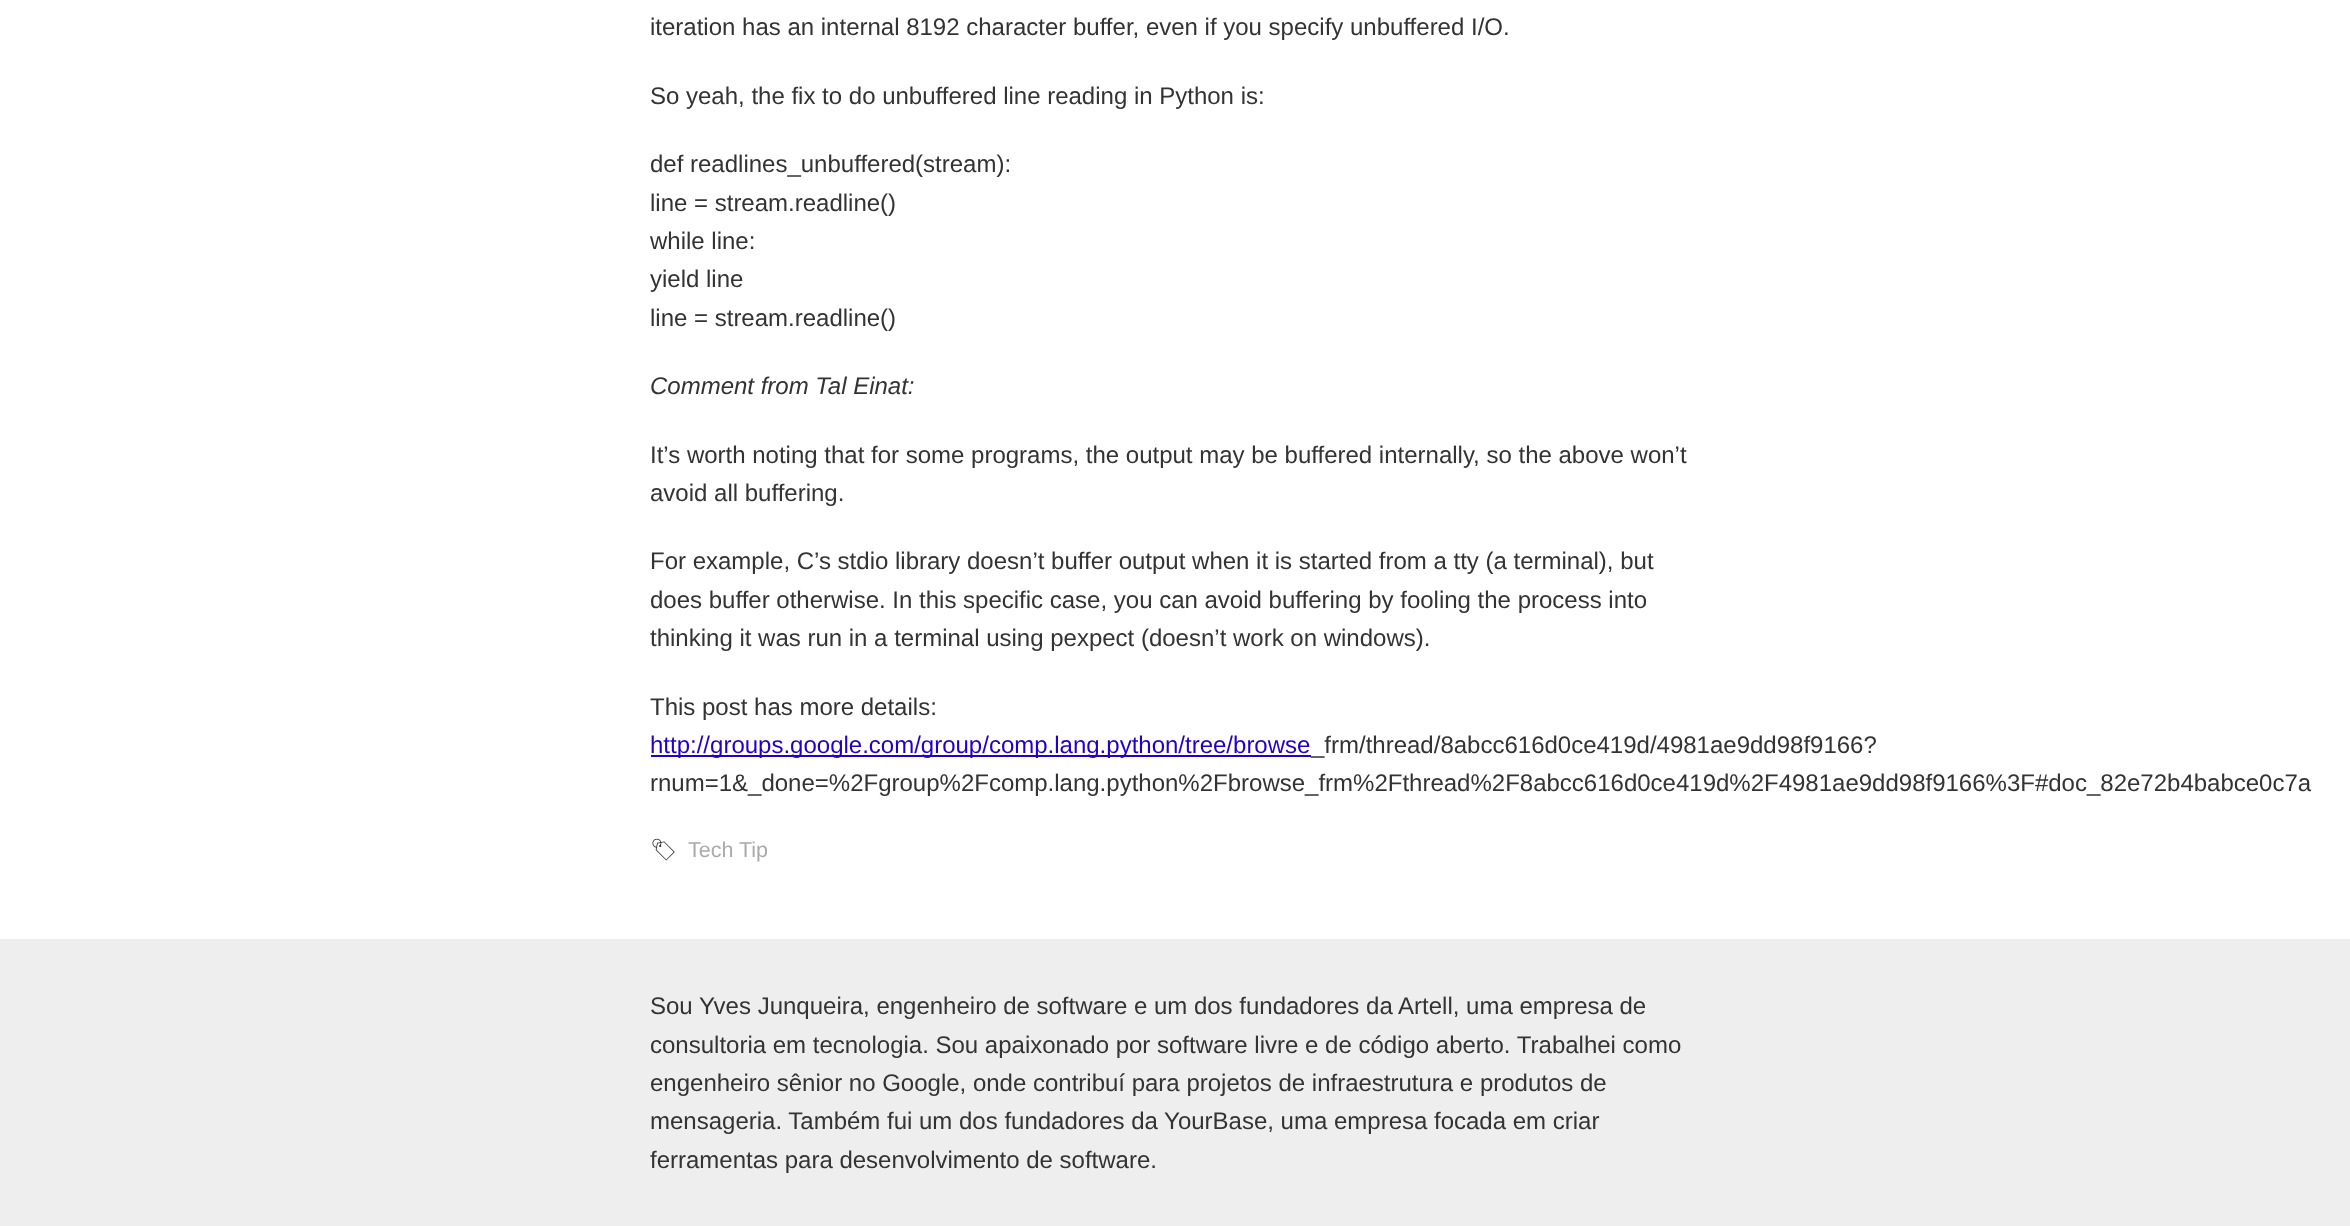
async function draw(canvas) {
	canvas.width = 2350;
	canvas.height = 1226;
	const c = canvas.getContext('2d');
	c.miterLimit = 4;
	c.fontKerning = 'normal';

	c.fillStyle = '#fff';
	c.fillRect(0, 0, 2350, 1226);
	c.font = '24px Liberation Sans';
	c.fillStyle = '#333';
	for (const [text, x, y] of [
		['iteration has an internal 8192 character buffer, even if you specify unbuffered I/O.', 650, 35],
		['So yeah, the fix to do unbuffered line reading in Python is:', 650, 104],
		['def readlines_unbuffered(stream):', 650, 172],
		['line = stream.readline()', 650, 211],
		['while line:', 650, 249],
		['yield line', 650, 287],
		['line = stream.readline()', 650, 326],
	]) {
		c.fillText(text, x, y);
	}
	c.font = 'italic 24px Liberation Sans';
	c.fillText('Comment from Tal Einat:', 650, 394);
	c.font = '24px Liberation Sans';
	for (const [text, x, y] of [
		['It’s worth noting that for some programs, the output may be buffered internally, so the above won’t', 650, 463],
		['avoid all buffering.', 650, 501],
		['For example, C’s stdio library doesn’t buffer output when it is started from a tty (a terminal), but', 650, 569],
		['does buffer otherwise. In this specific case, you can avoid buffering by fooling the process into', 650, 608],
		['thinking it was run in a terminal using pexpect (doesn’t work on windows).', 650, 646],
		['This post has more details:', 650, 715],
	]) {
		c.fillText(text, x, y);
	}
	c.fillStyle = '#20c';
	c.fillRect(651, 755, 660, 2);
	c.fillText('http://groups.google.com/group/comp.lang.python/tree/browse', 650, 753);
	c.fillStyle = '#333';
	c.fillText('_frm/thread/8abcc616d0ce419d/4981ae9dd98f9166?', 1311, 753);
	c.fillText('rnum=1&_done=%2Fgroup%2Fcomp.lang.python%2Fbrowse_frm%2Fthread%2F8abcc616d0ce419d%2F4981ae9dd98f9166%3F#doc_82e72b4babce0c7a', 650, 791);
	c.font = '21.5px Noto Emoji';
	c.fillText('🏷', 650, 857);
	c.font = '21.5px Liberation Sans';
	c.fillStyle = '#aaa';
	c.fillText('Tech Tip', 688, 857);
	c.fillStyle = '#eee';
	c.fillRect(0, 939, 2350, 287);
	c.font = '24px Liberation Sans';
	c.fillStyle = '#333';
	for (const [text, x, y] of [
		['Sou Yves Junqueira, engenheiro de software e um dos fundadores da Artell, uma empresa de', 650, 1014],
		['consultoria em tecnologia. Sou apaixonado por software livre e de código aberto. Trabalhei como', 650, 1053],
		['engenheiro sênior no Google, onde contribuí para projetos de infraestrutura e produtos de', 650, 1091],
		['mensageria. Também fui um dos fundadores da YourBase, uma empresa focada em criar', 650, 1129],
		['ferramentas para desenvolvimento de software.', 650, 1168],
	]) {
		c.fillText(text, x, y);
	}
}

draw(document.querySelector('canvas'));
